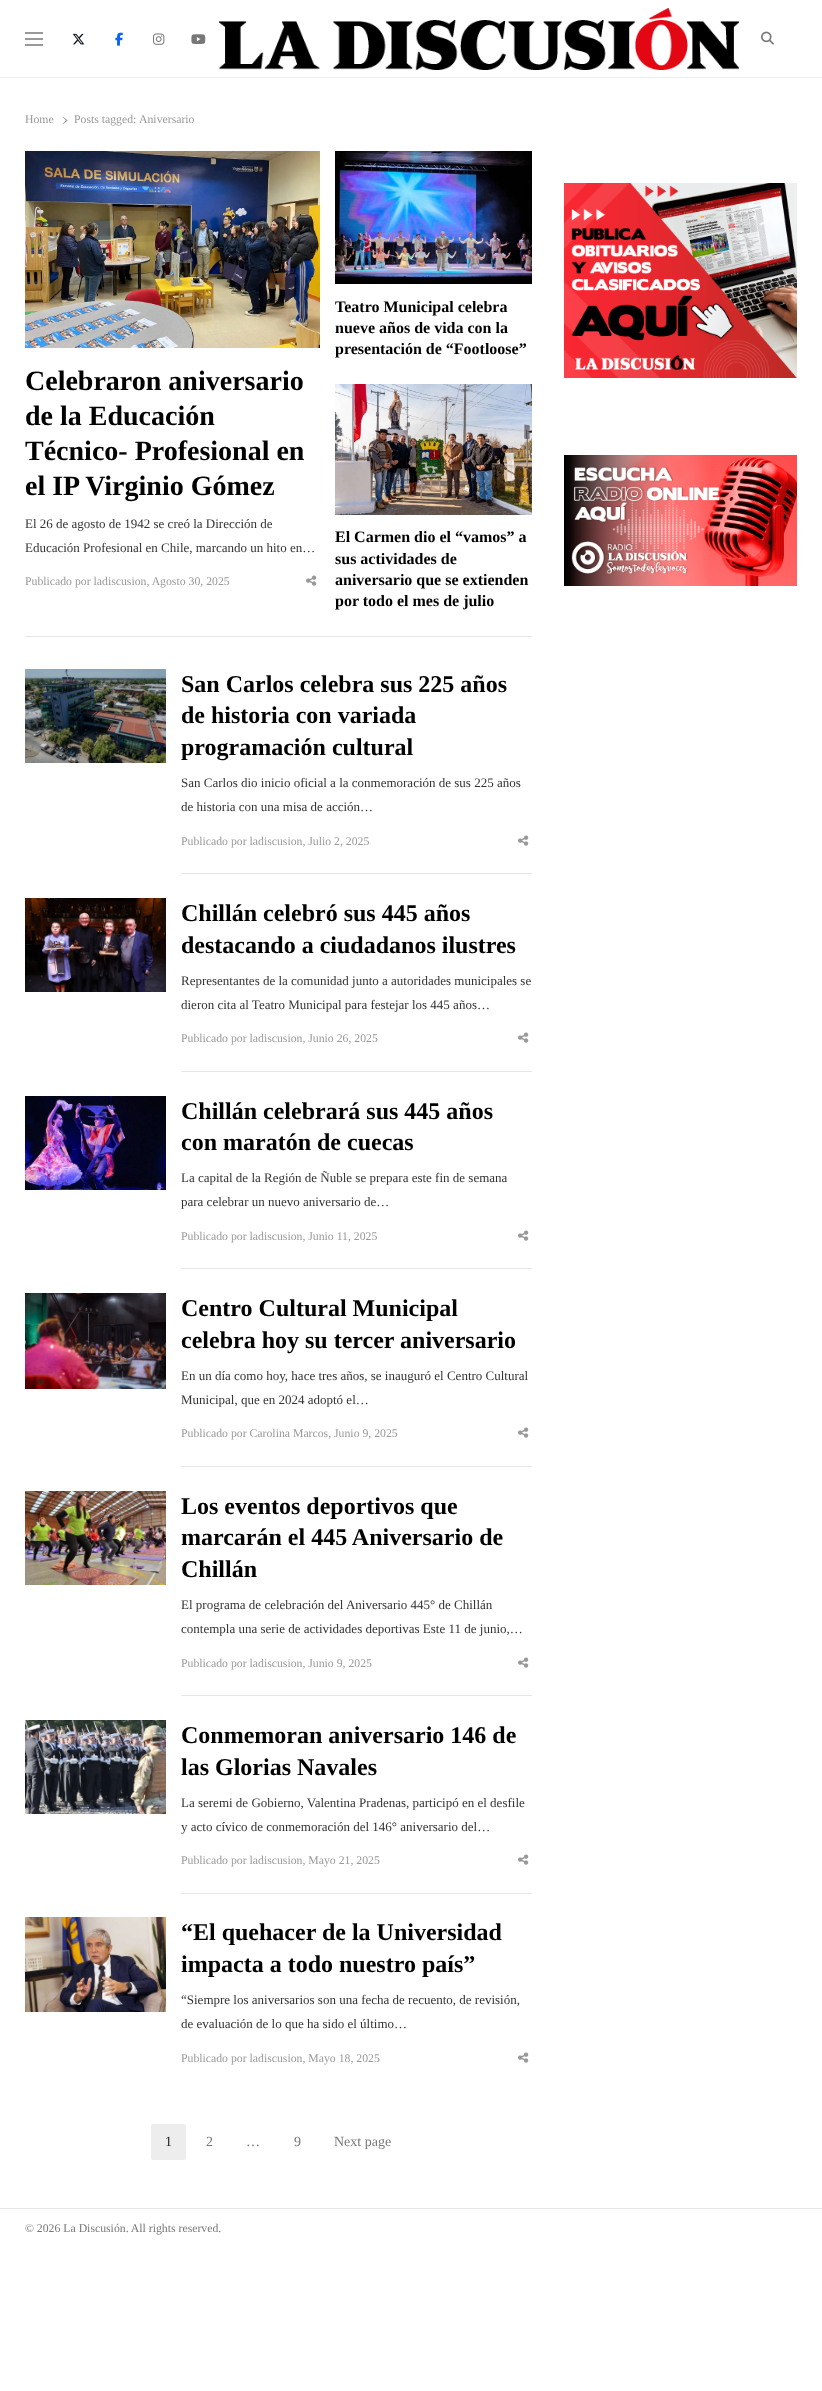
async function draw(canvas) {
	canvas.width = 822;
	canvas.height = 2391;
	const c = canvas.getContext('2d');
	c.miterLimit = 4;
	c.fontKerning = 'normal';
	async function loadImage(src) {
		const img = new Image();
		img.src = src;
		await img.decode();
		return img;
	}

	c.fillStyle = '#fff';
	c.fillRect(0, 0, 822, 2391);
	for (const [x, y, w, h, color] of [
		[0, 77, 822, 1, '#ededed'],
		[25, 38, 18, 2, '#999'],
		[25, 32, 18, 2, '#999'],
		[25, 44, 18, 2, '#999'],
	]) {
		c.fillStyle = color;
		c.fillRect(x, y, w, h);
	}
	c.drawImage(await loadImage('img1.png'), 72, 33, 13, 12);
	c.drawImage(await loadImage('img2.png'), 115, 32, 8, 14);
	c.drawImage(await loadImage('img3.png'), 153, 33, 12, 12);
	c.drawImage(await loadImage('img4.png'), 191, 34, 15, 10);
	c.drawImage(await loadImage('img5.png'), 219, 8, 520, 62);
	c.drawImage(await loadImage('img6.png'), 761, 31, 13, 14);
	c.font = '11.75px Liberation Serif';
	c.fillText('Home', 25, 123);
	c.beginPath();
	c.moveTo(63, 117.5);
	c.lineTo(63.5, 117);
	c.lineTo(67.5, 120.5);
	c.lineTo(66.5, 121);
	c.closePath();
	c.fill();
	c.beginPath();
	c.moveTo(63, 123.5);
	c.lineTo(66.5, 119.5);
	c.lineTo(67.5, 120.5);
	c.lineTo(63.5, 124);
	c.closePath();
	c.fill();
	c.fillText('Posts tagged:', 74, 123);
	c.fillText('Aniversario', 139, 123);
	c.drawImage(await loadImage('img7.png'), 25, 151, 295, 197);
	c.font = 'bold 28px Liberation Serif';
	c.fillStyle = '#000';
	for (const [text, x, y] of [
		['Celebraron aniversario', 25, 390],
		['de la Educación', 25, 425],
		['Técnico- Profesional en', 25, 460],
		['el IP Virginio Gómez', 25, 495],
	]) {
		c.fillText(text, x, y);
	}
	c.font = '13px Liberation Serif';
	c.fillStyle = '#333';
	c.fillText('El 26 de agosto de 1942 se creó la Dirección de', 25, 528);
	c.fillText('Educación Profesional en Chile, marcando un hito en…', 25, 552);
	c.font = '11.75px Liberation Serif';
	c.fillStyle = '#999';
	c.fillText('Publicado por ladiscusion, Agosto 30, 2025', 25, 585);
	c.drawImage(await loadImage('img8.png'), 306, 575, 11, 11);
	c.drawImage(await loadImage('img9.png'), 335, 151, 197, 133);
	c.font = 'bold 16px Liberation Serif';
	c.fillStyle = '#000';
	for (const [text, x, y] of [
		['Teatro Municipal celebra', 335, 312],
		['nueve años de vida con la', 335, 333],
		['presentación de “Footloose”', 335, 354],
	]) {
		c.fillText(text, x, y);
	}
	c.drawImage(await loadImage('img10.png'), 335, 384, 197, 131);
	for (const [text, x, y] of [
		['El Carmen dio el “vamos” a', 335, 542],
		['sus actividades de', 335, 564],
		['aniversario que se extienden', 335, 585],
		['por todo el mes de julio', 335, 606],
	]) {
		c.fillText(text, x, y);
	}
	c.fillStyle = '#e6e6e6';
	c.fillRect(25, 636, 507, 1);
	c.drawImage(await loadImage('img11.png'), 25, 669, 141, 94);
	c.font = 'bold 24px Liberation Serif';
	c.fillStyle = '#000';
	for (const [text, x, y] of [
		['San Carlos celebra sus 225 años', 181, 692],
		['de historia con variada', 181, 723],
		['programación cultural', 181, 755],
	]) {
		c.fillText(text, x, y);
	}
	c.font = '13px Liberation Serif';
	c.fillStyle = '#333';
	c.fillText('San Carlos dio inicio oficial a la conmemoración de sus 225 años', 181, 787);
	c.fillText('de historia con una misa de acción…', 181, 811);
	c.font = '11.75px Liberation Serif';
	c.fillStyle = '#999';
	c.fillText('Publicado por ladiscusion, Julio 2, 2025', 181, 845);
	c.drawImage(await loadImage('img8.png'), 518, 835, 11, 11);
	c.fillStyle = '#e6e6e6';
	c.fillRect(181, 873, 351, 1);
	c.drawImage(await loadImage('img12.png'), 25, 898, 141, 94);
	c.font = 'bold 24px Liberation Serif';
	c.fillStyle = '#000';
	c.fillText('Chillán celebró sus 445 años', 181, 921);
	c.fillText('destacando a ciudadanos ilustres', 181, 953);
	c.font = '13px Liberation Serif';
	c.fillStyle = '#333';
	c.fillText('Representantes de la comunidad junto a autoridades municipales se', 181, 985);
	c.fillText('dieron cita al Teatro Municipal para festejar los 445 años…', 181, 1009);
	c.font = '11.75px Liberation Serif';
	c.fillStyle = '#999';
	c.fillText('Publicado por ladiscusion, Junio 26, 2025', 181, 1042);
	c.drawImage(await loadImage('img8.png'), 518, 1032, 11, 11);
	c.fillStyle = '#e6e6e6';
	c.fillRect(181, 1071, 351, 1);
	c.drawImage(await loadImage('img13.png'), 25, 1096, 141, 94);
	c.font = 'bold 24px Liberation Serif';
	c.fillStyle = '#000';
	c.fillText('Chillán celebrará sus 445 años', 181, 1119);
	c.fillText('con maratón de cuecas', 181, 1150);
	c.font = '13px Liberation Serif';
	c.fillStyle = '#333';
	c.fillText('La capital de la Región de Ñuble se prepara este fin de semana', 181, 1182);
	c.fillText('para celebrar un nuevo aniversario de…', 181, 1206);
	c.font = '11.75px Liberation Serif';
	c.fillStyle = '#999';
	c.fillText('Publicado por ladiscusion, Junio 11, 2025', 181, 1240);
	c.drawImage(await loadImage('img8.png'), 518, 1230, 11, 11);
	c.fillStyle = '#e6e6e6';
	c.fillRect(181, 1268, 351, 1);
	c.drawImage(await loadImage('img14.png'), 25, 1293, 141, 96);
	c.font = 'bold 24px Liberation Serif';
	c.fillStyle = '#000';
	c.fillText('Centro Cultural Municipal', 181, 1316);
	c.fillText('celebra hoy su tercer aniversario', 181, 1348);
	c.font = '13px Liberation Serif';
	c.fillStyle = '#333';
	c.fillText('En un día como hoy, hace tres años, se inauguró el Centro Cultural', 181, 1380);
	c.fillText('Municipal, que en 2024 adoptó el…', 181, 1404);
	c.font = '11.75px Liberation Serif';
	c.fillStyle = '#999';
	c.fillText('Publicado por Carolina Marcos, Junio 9, 2025', 181, 1437);
	c.drawImage(await loadImage('img8.png'), 518, 1427, 11, 11);
	c.fillStyle = '#e6e6e6';
	c.fillRect(181, 1466, 351, 1);
	c.drawImage(await loadImage('img15.png'), 25, 1491, 141, 94);
	c.font = 'bold 24px Liberation Serif';
	c.fillStyle = '#000';
	for (const [text, x, y] of [
		['Los eventos deportivos que', 181, 1514],
		['marcarán el 445 Aniversario de', 181, 1545],
		['Chillán', 181, 1577],
	]) {
		c.fillText(text, x, y);
	}
	c.font = '13px Liberation Serif';
	c.fillStyle = '#333';
	c.fillText('El programa de celebración del Aniversario 445° de Chillán', 181, 1609);
	c.fillText('contempla una serie de actividades deportivas Este 11 de junio,…', 181, 1633);
	c.font = '11.75px Liberation Serif';
	c.fillStyle = '#999';
	c.fillText('Publicado por ladiscusion, Junio 9, 2025', 181, 1667);
	c.drawImage(await loadImage('img8.png'), 518, 1657, 11, 11);
	c.fillStyle = '#e6e6e6';
	c.fillRect(181, 1695, 351, 1);
	c.drawImage(await loadImage('img16.png'), 25, 1720, 141, 94);
	c.font = 'bold 24px Liberation Serif';
	c.fillStyle = '#000';
	c.fillText('Conmemoran aniversario 146 de', 181, 1743);
	c.fillText('las Glorias Navales', 181, 1775);
	c.font = '13px Liberation Serif';
	c.fillStyle = '#333';
	c.fillText('La seremi de Gobierno, Valentina Pradenas, participó en el desfile', 181, 1807);
	c.fillText('y acto cívico de conmemoración del 146° aniversario del…', 181, 1831);
	c.font = '11.75px Liberation Serif';
	c.fillStyle = '#999';
	c.fillText('Publicado por ladiscusion, Mayo 21, 2025', 181, 1864);
	c.drawImage(await loadImage('img8.png'), 518, 1854, 11, 11);
	c.fillStyle = '#e6e6e6';
	c.fillRect(181, 1893, 351, 1);
	c.drawImage(await loadImage('img17.png'), 25, 1917, 141, 95);
	c.font = 'bold 24px Liberation Serif';
	c.fillStyle = '#000';
	c.fillText('“El quehacer de la Universidad', 181, 1940);
	c.fillText('impacta a todo nuestro país”', 181, 1972);
	c.font = '13px Liberation Serif';
	c.fillStyle = '#333';
	c.fillText('“Siempre los aniversarios son una fecha de recuento, de revisión,', 181, 2004);
	c.fillText('de evaluación de lo que ha sido el último…', 181, 2028);
	c.font = '11.75px Liberation Serif';
	c.fillStyle = '#999';
	c.fillText('Publicado por ladiscusion, Mayo 18, 2025', 181, 2062);
	c.drawImage(await loadImage('img8.png'), 518, 2052, 11, 11);
	c.fillStyle = '#ededed';
	c.beginPath();
	c.roundRect(151, 2124, 35, 36, 2);
	c.fill();
	c.font = '14px Liberation Serif';
	c.fillStyle = '#212121';
	c.fillText('1', 165, 2146);
	c.fillStyle = '#777';
	for (const [text, x, y] of [
		['2', 206, 2146],
		['…', 246, 2146],
		['9', 294, 2146],
		['Next page', 334, 2146],
	]) {
		c.fillText(text, x, y);
	}
	c.drawImage(await loadImage('img18.png'), 564, 183, 233, 195);
	c.drawImage(await loadImage('img19.png'), 564, 455, 233, 131);
	c.fillStyle = '#e6e6e6';
	c.fillRect(0, 2208, 822, 1);
	c.font = '11.75px Liberation Serif';
	c.fillStyle = '#777';
	c.fillText('© 2026 La Discusión. All rights reserved.', 25, 2232);
}

draw(document.querySelector('canvas'));
